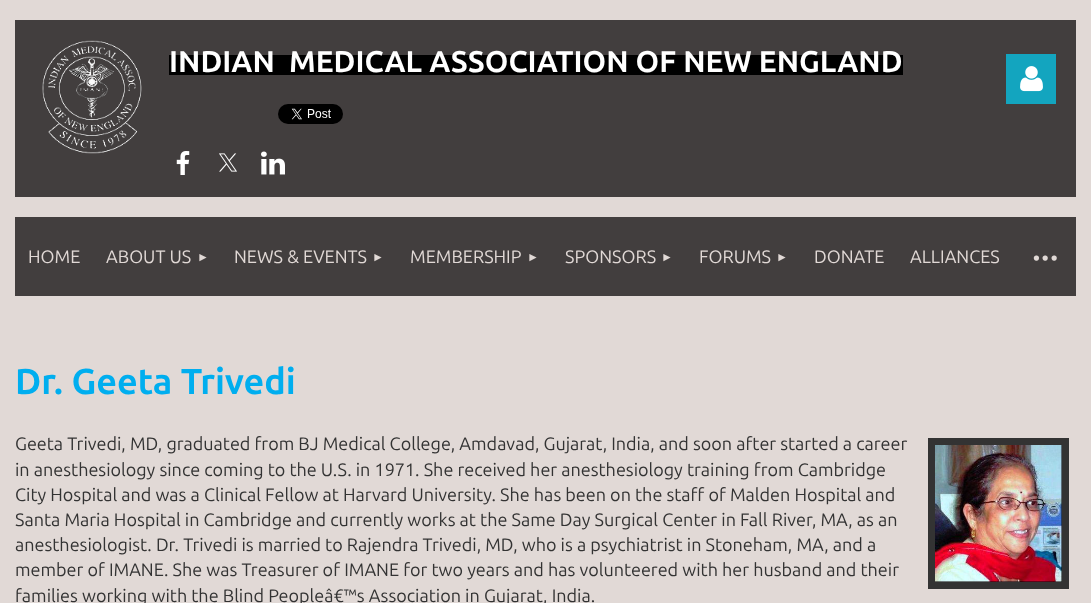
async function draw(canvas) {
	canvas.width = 1091;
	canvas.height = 603;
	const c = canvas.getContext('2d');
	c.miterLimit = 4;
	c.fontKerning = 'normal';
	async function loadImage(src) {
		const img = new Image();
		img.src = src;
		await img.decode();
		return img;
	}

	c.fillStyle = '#e1d9d6';
	c.fillRect(0, 0, 1091, 603);
	c.fillStyle = '#423e3e';
	c.fillRect(15, 20, 1061, 177);
	c.drawImage(await loadImage('img1.png'), 42, 40, 100, 114);
	c.fillStyle = '#000';
	c.fillRect(169, 55, 734, 20);
	c.font = 'bold 30px Ubuntu';
	c.fillStyle = '#fff';
	c.fillText('INDIAN  MEDICAL ASSOCIATION OF NEW ENGLAND', 169, 72);
	c.drawImage(await loadImage('img2.png'), 278, 104, 65, 20);
	c.drawImage(await loadImage('img3.png'), 176, 151, 14, 24);
	c.drawImage(await loadImage('img4.png'), 219, 153, 18, 19);
	c.drawImage(await loadImage('img5.png'), 261, 151, 24, 24);
	c.fillStyle = '#13a5bf';
	c.fillRect(1006, 54, 50, 50);
	c.drawImage(await loadImage('img6.png'), 1020, 66, 23, 26);
	c.fillStyle = '#423e3e';
	c.fillRect(15, 217, 1061, 79);
	c.font = '18px Ubuntu';
	c.fillStyle = '#e1d9d6';
	c.fillText('HOME', 28, 263);
	c.fillText('ABOUT US', 106, 263);
	c.font = '12px Liberation Sans';
	c.fillText('►', 197, 261);
	c.font = '18px Ubuntu';
	c.fillText('NEWS & EVENTS', 234, 263);
	c.font = '12px Liberation Sans';
	c.fillText('►', 372, 261);
	c.font = '18px Ubuntu';
	c.fillText('MEMBERSHIP', 410, 263);
	c.font = '12px Liberation Sans';
	c.fillText('►', 527, 261);
	c.font = '18px Ubuntu';
	c.fillText('SPONSORS', 565, 263);
	c.font = '12px Liberation Sans';
	c.fillText('►', 661, 261);
	c.font = '18px Ubuntu';
	c.fillText('FORUMS', 699, 263);
	c.font = '12px Liberation Sans';
	c.fillText('►', 776, 261);
	c.font = '18px Ubuntu';
	c.fillText('DONATE', 814, 263);
	c.fillText('ALLIANCES', 910, 263);
	c.letterSpacing = '-2px';
	c.font = '44px Ubuntu';
	c.fillText('···', 1031, 271);
	c.letterSpacing = '0px';
	c.font = 'bold 36px Ubuntu';
	c.fillStyle = '#00aeef';
	c.fillText('Dr. Geeta Trivedi', 15, 394);
	c.font = '18px Ubuntu';
	c.fillStyle = '#333';
	c.fillText('Geeta Trivedi, MD, graduated from BJ Medical College, Amdavad, Gujarat, India, and soon after started a career', 15, 450);
	c.strokeStyle = '#333';
	c.lineWidth = 7;
	c.strokeRect(931.5, 441.5, 134, 144);
	c.drawImage(await loadImage('img7.png'), 935, 445, 127, 137);
	for (const [text, x, y] of [
		['in anesthesiology since coming to the U.S. in 1971. She received her anesthesiology training from Cambridge', 15, 476],
		['City Hospital and was a Clinical Fellow at Harvard University. She has been on the staff of Malden Hospital and', 15, 501],
		['Santa Maria Hospital in Cambridge and currently works at the Same Day Surgical Center in Fall River, MA, as an', 15, 526],
		['anesthesiologist. Dr. Trivedi is married to Rajendra Trivedi, MD, who is a psychiatrist in Stoneham, MA, and a', 15, 551],
		['member of IMANE. She was Treasurer of IMANE for two years and has volunteered with her husband and their', 15, 576],
		['families working with the Blind Peopleâ€™s Association in Gujarat, India.', 15, 602],
	]) {
		c.fillText(text, x, y);
	}
}

draw(document.querySelector('canvas'));
